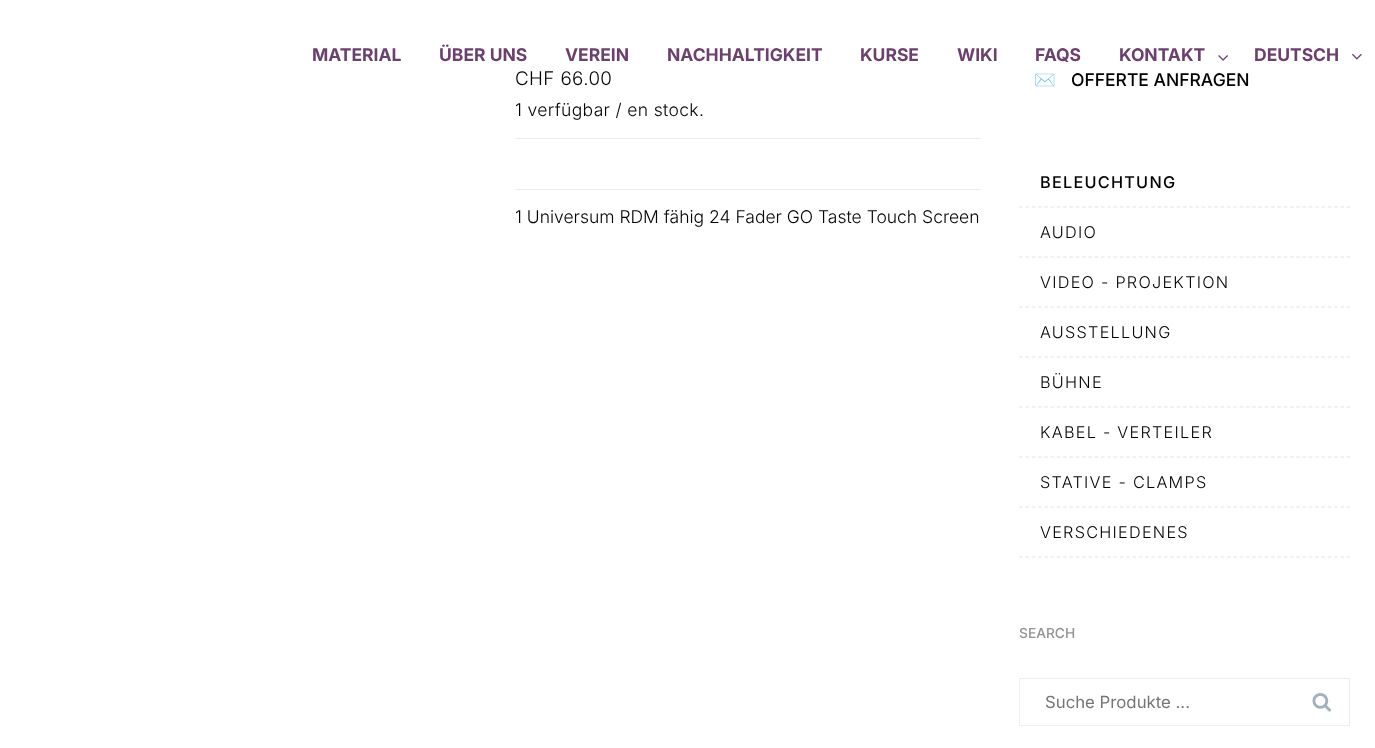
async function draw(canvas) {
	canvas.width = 1375;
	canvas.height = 748;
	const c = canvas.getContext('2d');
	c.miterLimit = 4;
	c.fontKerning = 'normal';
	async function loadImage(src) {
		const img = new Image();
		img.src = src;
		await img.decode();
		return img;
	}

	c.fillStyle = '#fff';
	c.fillRect(0, 0, 1375, 748);
	c.fillStyle = '#ffffff1a';
	c.fillRect(518, 110, 178, 3);
	c.font = 'bold 17.5px Inter';
	c.fillStyle = '#6c406d';
	for (const [text, x, y] of [
		['MATERIAL', 312, 61],
		['ÜBER UNS', 439, 61],
		['VEREIN', 565, 61],
		['NACHHALTIGKEIT', 667, 61],
		['KURSE', 860, 61],
		['WIKI', 957, 61],
		['FAQS', 1035, 61],
		['KONTAKT', 1119, 61],
	]) {
		c.fillText(text, x, y);
	}
	c.drawImage(await loadImage('img1.png'), 1218, 55, 10, 6);
	c.fillText('DEUTSCH', 1254, 61);
	c.drawImage(await loadImage('img2.png'), 1352, 53, 10, 7);
	c.letterSpacing = '0.4px';
	c.font = '300 18.75px Inter';
	c.fillStyle = '#000';
	c.fillText('CHF 66.00', 515, 85);
	c.letterSpacing = '0.35px';
	c.font = '300 17.5px Inter';
	c.fillText('1 verfügbar / en stock.', 515, 116);
	c.fillStyle = '#ededed';
	c.fillRect(515, 138, 466, 1);
	c.fillRect(515, 189, 466, 1);
	c.letterSpacing = '0px';
	c.fillStyle = '#000';
	c.fillText('1 Universum RDM fähig 24 Fader GO Taste Touch Screen', 515, 223);
	c.font = '17.5px Noto Color Emoji';
	c.fillText('✉️', 1034, 86);
	c.font = '500 17.5px Inter';
	c.fillText('OFFERTE ANFRAGEN', 1071, 86);
	c.beginPath();
	c.moveTo(1019, 207);
	c.lineTo(1350, 207);
	c.strokeStyle = '#e3e3e3';
	c.lineWidth = 1.2;
	c.setLineDash([3.75, 2.55]);
	c.stroke();
	c.letterSpacing = '1.25px';
	c.font = '500 16.25px Inter';
	c.fillText('BELEUCHTUNG', 1040, 188);
	c.beginPath();
	c.moveTo(1019, 257);
	c.lineTo(1350, 257);
	c.stroke();
	c.font = '300 16.25px Inter';
	c.fillText('AUDIO', 1040, 238);
	c.beginPath();
	c.moveTo(1019, 307);
	c.lineTo(1350, 307);
	c.stroke();
	c.fillText('VIDEO - PROJEKTION', 1040, 288);
	c.beginPath();
	c.moveTo(1019, 357);
	c.lineTo(1350, 357);
	c.stroke();
	c.fillText('AUSSTELLUNG', 1040, 338);
	c.beginPath();
	c.moveTo(1019, 407);
	c.lineTo(1350, 407);
	c.stroke();
	c.fillText('BÜHNE', 1040, 388);
	c.beginPath();
	c.moveTo(1019, 457);
	c.lineTo(1350, 457);
	c.stroke();
	c.fillText('KABEL - VERTEILER', 1040, 438);
	c.beginPath();
	c.moveTo(1019, 507);
	c.lineTo(1350, 507);
	c.stroke();
	c.fillText('STATIVE - CLAMPS', 1040, 488);
	c.beginPath();
	c.moveTo(1019, 557);
	c.lineTo(1350, 557);
	c.stroke();
	c.fillText('VERSCHIEDENES', 1040, 538);
	c.letterSpacing = '0px';
	c.font = '500 13.75px Inter';
	c.fillStyle = '#939393';
	c.fillText('SEARCH', 1019, 638);
	c.strokeStyle = '#eceef0';
	c.lineWidth = 1;
	c.setLineDash([]);
	c.strokeRect(1019.5, 678.5, 330, 47);
	c.font = '16.75px Inter';
	c.fillStyle = '#757575';
	c.fillText('Suche Produkte ...', 1045, 708);
	c.drawImage(await loadImage('img3.png'), 1312, 693, 19, 19);
}

draw(document.querySelector('canvas'));
